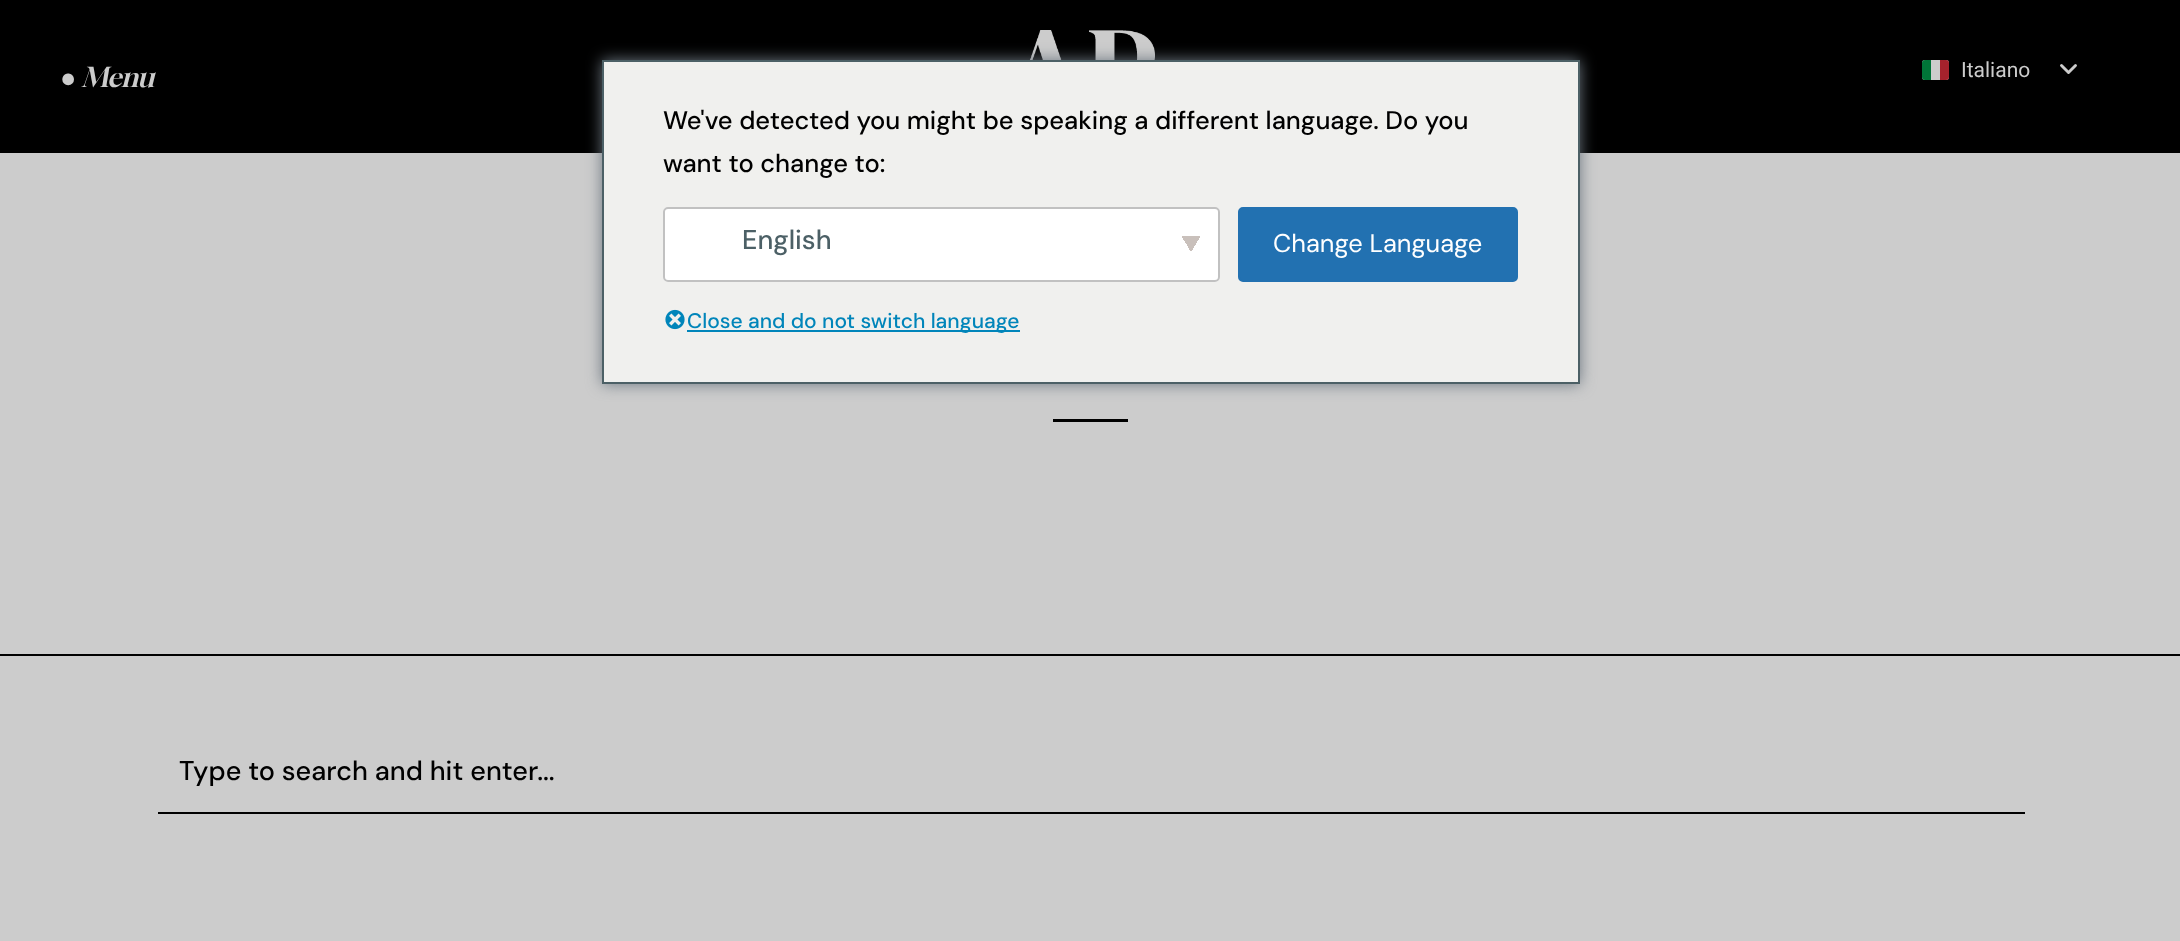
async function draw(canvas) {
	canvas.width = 2180;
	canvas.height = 941;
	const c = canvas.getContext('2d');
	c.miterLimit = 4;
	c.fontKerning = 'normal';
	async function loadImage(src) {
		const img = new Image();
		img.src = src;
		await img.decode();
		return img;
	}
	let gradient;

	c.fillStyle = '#ccc';
	c.fillRect(0, 0, 2180, 941);
	c.fillStyle = '#000';
	c.fillRect(0, 0, 2180, 153);
	c.drawImage(await loadImage('img1.png'), 1029, 30, 126, 30);
	c.font = 'italic 27px Liberation Sans';
	c.fillStyle = '#ccc';
	c.fillText('●', 60, 87);
	c.font = 'italic 27px Gloock';
	c.fillText('Menu', 82, 87);
	c.beginPath();
	c.roundRect(1922, 60, 27, 20, 3);
	c.fill();
	c.fillStyle = '#007538';
	c.beginPath();
	c.roundRect(1922, 60, 9, 20, [3, 0, 0, 3]);
	c.fill();
	c.fillStyle = '#a5222c';
	c.beginPath();
	c.roundRect(1940, 60, 9, 20, [0, 3, 3, 0]);
	c.fill();
	c.font = '21px Roboto';
	c.fillStyle = '#ccc';
	c.fillText('Italiano', 1961, 77);
	c.beginPath();
	c.moveTo(2061.5, 65.5);
	c.lineTo(2068.5, 72.5);
	c.lineTo(2075.5, 65.5);
	c.strokeStyle = '#ccc';
	c.lineWidth = 2.9;
	c.lineCap = 'round';
	c.lineJoin = 'round';
	c.stroke();
	c.fillStyle = '#6c7781';
	c.filter = 'blur(7.5px)';
	c.beginPath();
	c.rect(602, 60, 978, 324);
	c.fill();
	c.filter = 'none';
	c.fillStyle = '#f0f0ee';
	c.beginPath();
	c.rect(603, 61, 976, 322);
	c.fill();
	c.strokeStyle = '#4c6066';
	c.lineWidth = 2;
	c.lineJoin = 'miter';
	c.stroke();
	c.font = '500 25.5px DM Sans';
	c.fillStyle = '#000';
	c.fillText('We\'ve detected you might be speaking a different language. Do you', 663, 129);
	c.fillText('want to change to:', 663, 172);
	c.fillStyle = '#fff';
	c.beginPath();
	c.roundRect(663, 207, 557, 75, 5);
	c.fill();
	gradient = c.createLinearGradient(1188, 240, 1203, 249);
	gradient.addColorStop(0.5, '#c9c0bb');
	gradient.addColorStop(0.5, '#fff');
	c.fillStyle = gradient;
	c.fillRect(1191, 236, 9, 15);
	gradient = c.createLinearGradient(1179, 249, 1194, 240);
	gradient.addColorStop(0.5, '#fff');
	gradient.addColorStop(0.5, '#c9c0bb');
	c.fillStyle = gradient;
	c.fillRect(1182, 236, 9, 15);
	c.beginPath();
	c.roundRect(664, 208, 555, 73, 4);
	c.strokeStyle = '#c1c1c1';
	c.stroke();
	c.font = '500 27px DM Sans';
	c.fillStyle = '#4c6066';
	c.fillText('English', 742, 249);
	c.fillStyle = '#2271b1';
	c.beginPath();
	c.roundRect(1239, 208, 278, 73, 4);
	c.fill();
	c.strokeStyle = '#2271b1';
	c.stroke();
	c.font = '25.5px DM Sans';
	c.fillStyle = '#fff';
	c.fillText('Change Language', 1273, 252);
	c.drawImage(await loadImage('img2.png'), 665, 309, 20, 21);
	c.fillStyle = '#0085ba';
	c.fillRect(687, 330, 333, 2);
	c.font = '500 21px DM Sans';
	c.fillText('Close and do not switch language', 687, 328);
	for (const [x, y, w, h, color] of [
		[0, 654, 2180, 2, '#000'],
		[1053, 419, 75, 3, '#000'],
		[158, 812, 1867, 2, '#000'],
	]) {
		c.fillStyle = color;
		c.fillRect(x, y, w, h);
	}
	c.font = '500 27px DM Sans';
	c.fillText('Type to search and hit enter...', 179, 780);
}

draw(document.querySelector('canvas'));
